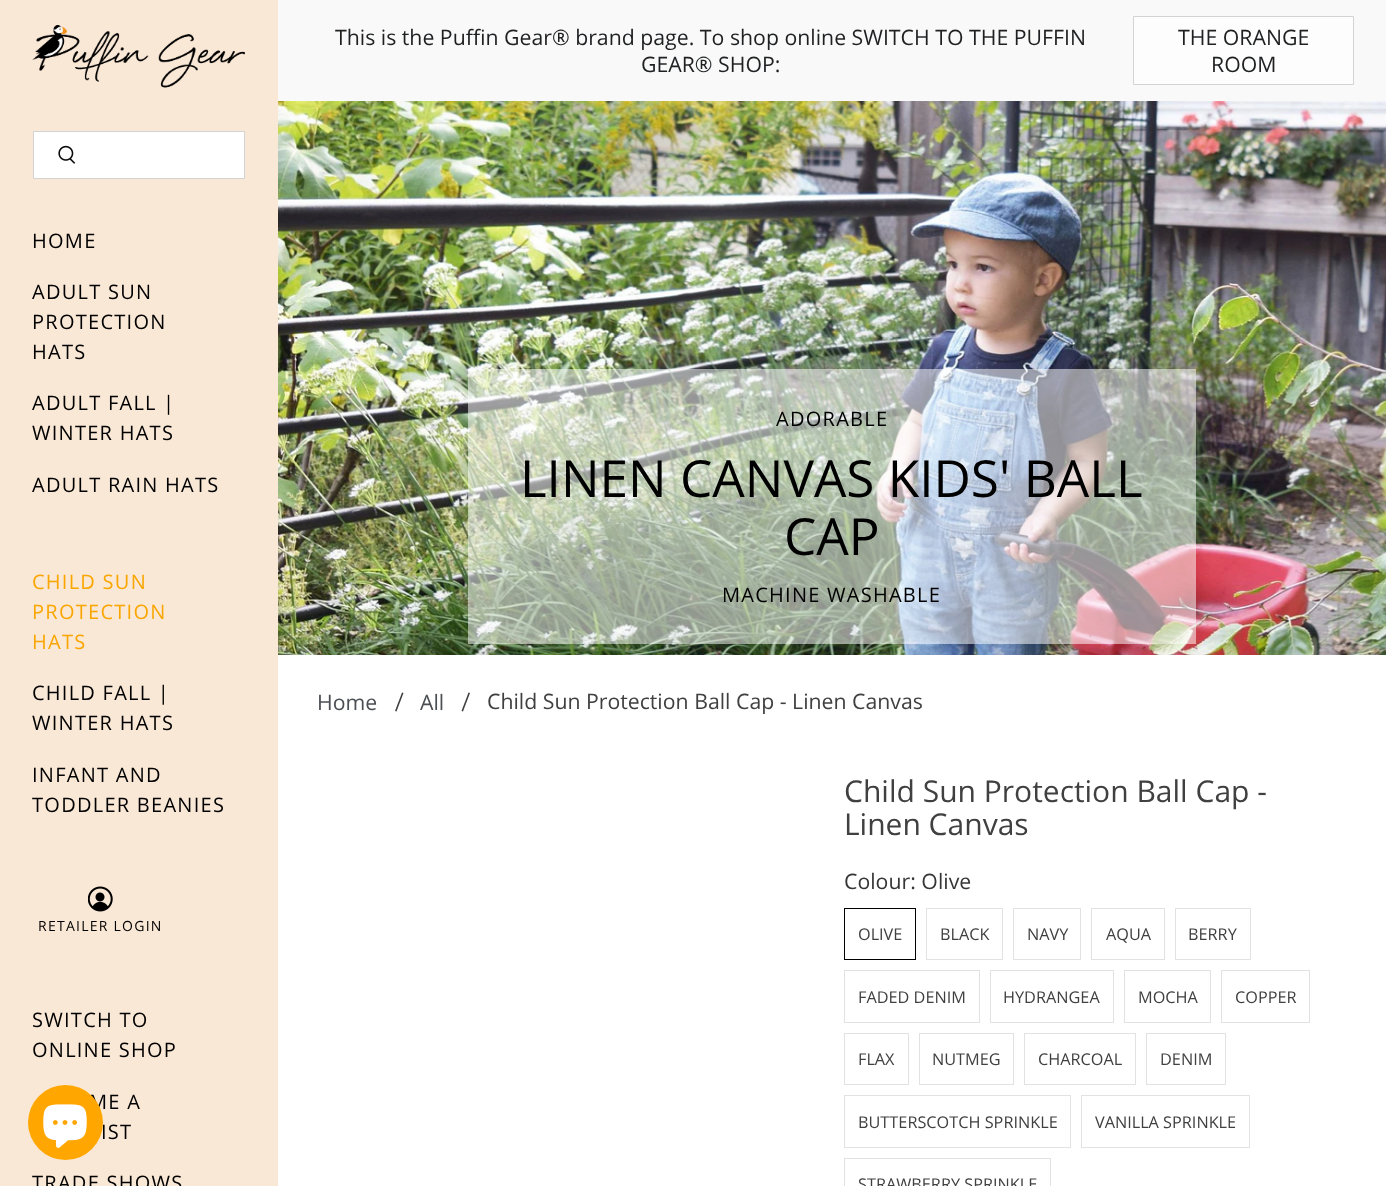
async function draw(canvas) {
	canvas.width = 1386;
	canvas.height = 1186;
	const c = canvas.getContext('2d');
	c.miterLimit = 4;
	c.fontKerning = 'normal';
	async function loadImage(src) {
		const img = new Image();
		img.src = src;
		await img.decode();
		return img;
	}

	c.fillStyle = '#fff';
	c.fillRect(0, 0, 1386, 1186);
	c.fillStyle = '#f9f9f9';
	c.fillRect(278, 0, 1108, 101);
	c.font = '21.25px Open Sans';
	c.fillStyle = '#1f2022';
	c.fillText('This is the Puffin Gear® brand page. To shop online SWITCH TO THE PUFFIN', 335, 45);
	c.fillText('GEAR® SHOP:', 641, 72);
	c.fillStyle = '#fdfdfd';
	c.beginPath();
	c.rect(1133.5, 16.5, 220, 68);
	c.fill();
	c.strokeStyle = '#d3d3d3';
	c.stroke();
	c.fillStyle = '#1f2022';
	c.fillText('THE ORANGE', 1178, 45);
	c.fillText('ROOM', 1211, 72);
	c.fillStyle = '#fae8d6';
	c.fillRect(0, 0, 278, 1186);
	c.drawImage(await loadImage('img1.png'), 32, 25, 213, 63);
	c.fillStyle = '#fff';
	c.beginPath();
	c.rect(33.5, 131.5, 211, 47);
	c.fill();
	c.stroke();
	c.drawImage(await loadImage('img2.png'), 58, 145, 18, 19);
	c.letterSpacing = '1.25px';
	c.font = '20px Open Sans';
	c.fillStyle = '#000';
	for (const [text, x, y] of [
		['HOME', 32, 248],
		['ADULT SUN', 32, 299],
		['PROTECTION', 32, 329],
		['HATS', 32, 359],
		['ADULT FALL |', 32, 410],
		['WINTER HATS', 32, 440],
		['ADULT RAIN HATS', 32, 492],
	]) {
		c.fillText(text, x, y);
	}
	c.fillStyle = '#faa600';
	for (const [text, x, y] of [
		['CHILD SUN', 32, 589],
		['PROTECTION', 32, 619],
		['HATS', 32, 649],
	]) {
		c.fillText(text, x, y);
	}
	c.fillStyle = '#000';
	for (const [text, x, y] of [
		['CHILD FALL |', 32, 700],
		['WINTER HATS', 32, 730],
		['INFANT AND', 32, 782],
		['TODDLER BEANIES', 32, 812],
	]) {
		c.fillText(text, x, y);
	}
	c.drawImage(await loadImage('img3.png'), 88, 886, 25, 26);
	c.font = '14px Open Sans';
	c.fillText('RETAILER LOGIN', 38, 931);
	c.font = '20px Open Sans';
	for (const [text, x, y] of [
		['SWITCH TO', 32, 1027],
		['ONLINE SHOP', 32, 1057],
		['ME A', 89, 1109],
		['IST', 101, 1139],
		['TRADE SHOWS', 32, 1190],
	]) {
		c.fillText(text, x, y);
	}
	c.drawImage(await loadImage('img4.png'), 278, 101, 1108, 554);
	c.fillStyle = '#ffffff87';
	c.fillRect(468, 369, 728, 275);
	c.fillStyle = '#000';
	c.fillText('ADORABLE', 776, 426);
	c.letterSpacing = '0px';
	c.font = '51.25px Open Sans';
	c.fillText('LINEN CANVAS KIDS\' BALL', 520, 497);
	c.fillText('CAP', 784, 555);
	c.letterSpacing = '1.25px';
	c.font = '20px Open Sans';
	c.fillText('MACHINE WASHABLE', 722, 602);
	c.letterSpacing = '0px';
	c.font = '21.25px Open Sans';
	c.fillStyle = '#4b4f54';
	c.fillText('Home', 317, 710);
	c.fillStyle = '#404040';
	c.beginPath();
	c.moveTo(395, 711);
	c.lineTo(402, 692.5);
	c.lineTo(403.5, 693);
	c.lineTo(396.5, 711.5);
	c.closePath();
	c.fill();
	c.fillStyle = '#4b4f54';
	c.fillText('All', 420, 710);
	c.fillStyle = '#404040';
	c.beginPath();
	c.moveTo(461.5, 711);
	c.lineTo(468.5, 692.5);
	c.lineTo(470, 693);
	c.lineTo(463, 711.5);
	c.closePath();
	c.fill();
	c.fillText('Child Sun Protection Ball Cap - Linen Canvas', 487, 709);
	c.font = '30px Open Sans';
	c.fillText('Child Sun Protection Ball Cap -', 844, 802);
	c.fillText('Linen Canvas', 844, 835);
	c.font = '21.25px Open Sans';
	c.fillStyle = '#363636';
	c.fillText('Colour: Olive', 844, 889);
	c.strokeStyle = '#000';
	c.strokeRect(844.5, 908.5, 71, 51);
	c.font = '16.25px Open Sans';
	c.fillStyle = '#404040';
	c.fillText('OLIVE', 858, 940);
	c.strokeStyle = '#e2e2e2';
	c.strokeRect(926.5, 908.5, 76, 51);
	c.fillText('BLACK', 940, 940);
	c.strokeRect(1013.5, 908.5, 67, 51);
	c.fillText('NAVY', 1027, 940);
	c.strokeRect(1091.5, 908.5, 73, 51);
	c.fillText('AQUA', 1106, 940);
	c.strokeRect(1175.5, 908.5, 75, 51);
	c.fillText('BERRY', 1188, 940);
	c.strokeRect(844.5, 970.5, 135, 52);
	c.fillText('FADED DENIM', 858, 1003);
	c.strokeRect(990.5, 970.5, 123, 52);
	c.fillText('HYDRANGEA', 1003, 1003);
	c.strokeRect(1124.5, 970.5, 86, 52);
	c.fillText('MOCHA', 1138, 1003);
	c.strokeRect(1221.5, 970.5, 88, 52);
	c.fillText('COPPER', 1235, 1003);
	c.strokeRect(844.5, 1033.5, 64, 51);
	c.fillText('FLAX', 858, 1065);
	c.strokeRect(919.5, 1033.5, 94, 51);
	c.fillText('NUTMEG', 932, 1065);
	c.strokeRect(1024.5, 1033.5, 111, 51);
	c.fillText('CHARCOAL', 1038, 1065);
	c.strokeRect(1146.5, 1033.5, 79, 51);
	c.fillText('DENIM', 1160, 1065);
	c.strokeRect(844.5, 1095.5, 226, 52);
	c.fillText('BUTTERSCOTCH SPRINKLE', 858, 1128);
	c.strokeRect(1081.5, 1095.5, 168, 52);
	c.fillText('VANILLA SPRINKLE', 1095, 1128);
	c.strokeRect(844.5, 1158.5, 206, 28);
	c.fillText('STRAWBERRY SPRINKLE', 858, 1190);
	c.fillStyle = '#ffa600';
	c.beginPath();
	c.arc(65.5, 1122.5, 37.5, 0, 2 * Math.PI);
	c.fill();
	c.drawImage(await loadImage('img5.png'), 43, 1104, 44, 44);
}

draw(document.querySelector('canvas'));
